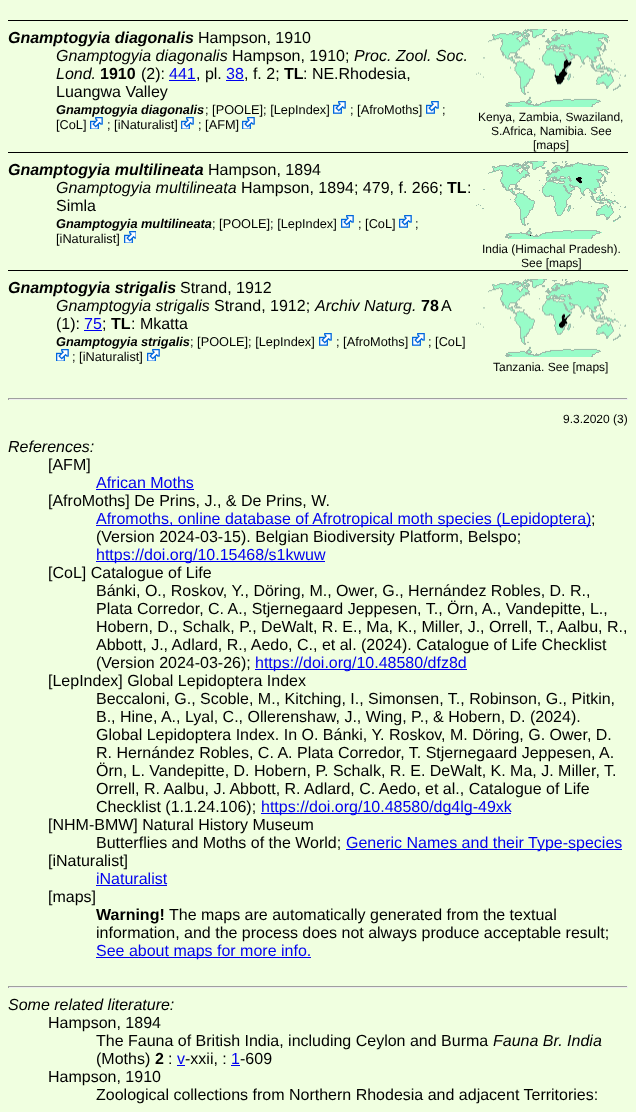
async function draw(canvas) {
	canvas.width = 636;
	canvas.height = 1112;
	const c = canvas.getContext('2d');
	c.miterLimit = 4;
	c.fontKerning = 'normal';
	async function loadImage(src) {
		const img = new Image();
		img.src = src;
		await img.decode();
		return img;
	}

	c.fillStyle = '#f0ffe0';
	c.fillRect(0, 0, 636, 1112);
	c.fillStyle = '#000';
	c.fillRect(8, 20, 620, 1);
	c.font = 'italic bold 16px Liberation Sans';
	c.fillText('Gnamptogyia diagonalis', 8, 43);
	c.font = '16px Liberation Sans';
	c.fillText('Hampson, 1910', 198, 43);
	c.font = 'italic 16px Liberation Sans';
	c.fillText('Gnamptogyia diagonalis', 56, 61);
	c.font = '16px Liberation Sans';
	c.fillText('Hampson, 1910;', 232, 61);
	c.font = 'italic 16px Liberation Sans';
	c.fillText('Proc. Zool. Soc.', 354, 61);
	c.fillText('Lond.', 56, 79);
	c.font = 'bold 16px Liberation Sans';
	c.fillText('1910', 100, 79);
	c.font = '16px Liberation Sans';
	c.fillText('(2):', 141, 79);
	c.fillStyle = '#00e';
	c.fillText('441', 169, 79);
	c.fillRect(169, 80, 27, 1);
	c.fillStyle = '#000';
	c.fillText(', pl.', 196, 79);
	c.fillStyle = '#00e';
	c.fillText('38', 226, 79);
	c.fillRect(226, 80, 18, 1);
	c.fillStyle = '#000';
	c.fillText(', f. 2;', 244, 79);
	c.font = 'bold 16px Liberation Sans';
	c.fillText('TL', 284, 79);
	c.font = '16px Liberation Sans';
	c.fillText(': NE.Rhodesia,', 303, 79);
	c.fillText('Luangwa Valley', 56, 97);
	c.font = 'italic bold 12.75px Liberation Sans';
	c.fillText('Gnamptogyia diagonalis', 56, 114);
	c.font = '12.75px Liberation Sans';
	c.fillText('; [POOLE]; [LepIndex]', 205, 114);
	c.drawImage(await loadImage('img1.png'), 333, 101, 13, 13);
	c.fillText('; [AfroMoths]', 350, 114);
	c.drawImage(await loadImage('img1.png'), 426, 101, 13, 13);
	c.fillText(';', 442, 114);
	c.fillText('[CoL]', 56, 129);
	c.drawImage(await loadImage('img2.png'), 90, 117, 13, 12);
	c.fillText('; [iNaturalist]', 107, 129);
	c.drawImage(await loadImage('img2.png'), 181, 117, 13, 12);
	c.fillText('; [AFM]', 198, 129);
	c.drawImage(await loadImage('img2.png'), 242, 117, 13, 12);
	c.drawImage(await loadImage('img3.png'), 476, 29, 150, 78);
	c.font = '12px Liberation Sans';
	for (const [text, x, y] of [
		['Kenya, Zambia, Swaziland,', 478, 121],
		['S.Africa, Namibia. See', 491, 135],
		['[maps]', 533, 149],
	]) {
		c.fillText(text, x, y);
	}
	c.fillRect(8, 152, 620, 1);
	c.font = 'italic bold 16px Liberation Sans';
	c.fillText('Gnamptogyia multilineata', 8, 175);
	c.font = '16px Liberation Sans';
	c.fillText('Hampson, 1894', 208, 175);
	c.font = 'italic 16px Liberation Sans';
	c.fillText('Gnamptogyia multilineata', 56, 193);
	c.font = '16px Liberation Sans';
	c.fillText('Hampson, 1894; 479, f. 266;', 241, 193);
	c.font = 'bold 16px Liberation Sans';
	c.fillText('TL', 447, 193);
	c.font = '16px Liberation Sans';
	c.fillText(':', 467, 193);
	c.fillText('Simla', 56, 211);
	c.font = 'italic bold 12.75px Liberation Sans';
	c.fillText('Gnamptogyia multilineata', 56, 228);
	c.font = '12.75px Liberation Sans';
	c.fillText('; [POOLE]; [LepIndex]', 212, 228);
	c.drawImage(await loadImage('img1.png'), 341, 215, 13, 13);
	c.fillText('; [CoL]', 358, 228);
	c.drawImage(await loadImage('img1.png'), 399, 215, 13, 13);
	c.fillText(';', 415, 228);
	c.fillText('[iNaturalist]', 56, 243);
	c.drawImage(await loadImage('img4.png'), 124, 231, 12, 12);
	c.drawImage(await loadImage('img5.png'), 476, 161, 150, 78);
	c.font = '12px Liberation Sans';
	c.fillText('India (Himachal Pradesh).', 482, 253);
	c.fillText('See [maps]', 521, 267);
	c.fillRect(8, 270, 620, 1);
	c.font = 'italic bold 16px Liberation Sans';
	c.fillText('Gnamptogyia strigalis', 8, 293);
	c.font = '16px Liberation Sans';
	c.fillText('Strand, 1912', 180, 293);
	c.font = 'italic 16px Liberation Sans';
	c.fillText('Gnamptogyia strigalis', 56, 311);
	c.font = '16px Liberation Sans';
	c.fillText('Strand, 1912;', 214, 311);
	c.font = 'italic 16px Liberation Sans';
	c.fillText('Archiv Naturg.', 315, 311);
	c.font = 'bold 16px Liberation Sans';
	c.fillText('78', 421, 311);
	c.font = '16px Liberation Sans';
	c.fillText('A', 441, 311);
	c.fillText('(1):', 56, 329);
	c.fillStyle = '#00e';
	c.fillText('75', 84, 329);
	c.fillRect(84, 330, 18, 1);
	c.fillStyle = '#000';
	c.fillText(';', 102, 329);
	c.font = 'bold 16px Liberation Sans';
	c.fillText('TL', 111, 329);
	c.font = '16px Liberation Sans';
	c.fillText(': Mkatta', 131, 329);
	c.font = 'italic bold 12.75px Liberation Sans';
	c.fillText('Gnamptogyia strigalis', 56, 346);
	c.font = '12.75px Liberation Sans';
	c.fillText('; [POOLE]; [LepIndex]', 190, 346);
	c.drawImage(await loadImage('img1.png'), 319, 333, 13, 13);
	c.fillText('; [AfroMoths]', 336, 346);
	c.drawImage(await loadImage('img1.png'), 412, 333, 13, 13);
	c.fillText('; [CoL]', 428, 346);
	c.drawImage(await loadImage('img2.png'), 56, 349, 13, 12);
	c.fillText('; [iNaturalist]', 72, 361);
	c.drawImage(await loadImage('img2.png'), 147, 349, 13, 12);
	c.drawImage(await loadImage('img6.png'), 476, 279, 150, 78);
	c.font = '12px Liberation Sans';
	c.fillText('Tanzania. See [maps]', 493, 371);
	for (const [x, y, w, h, color] of [
		[8, 398, 620, 1, '#9f9f9f'],
		[627, 398, 1, 2, '#eee'],
		[8, 399, 620, 1, '#eee'],
		[8, 398, 1, 2, '#9f9f9f'],
	]) {
		c.fillStyle = color;
		c.fillRect(x, y, w, h);
	}
	c.fillStyle = '#000';
	c.fillText('9.3.2020 (3)', 563, 423);
	c.font = 'italic 16px Liberation Sans';
	c.fillText('References:', 8, 452);
	c.font = '16px Liberation Sans';
	c.fillText('[AFM]', 48, 470);
	c.fillStyle = '#00e';
	c.fillText('African Moths', 96, 488);
	c.fillRect(96, 489, 98, 1);
	c.fillStyle = '#000';
	c.fillText('[AfroMoths] De Prins, J., & De Prins, W.', 48, 506);
	c.fillStyle = '#00e';
	c.fillRect(96, 525, 495, 1);
	c.fillText('Afromoths, online database of Afrotropical moth species (Lepidoptera)', 96, 524);
	c.fillStyle = '#000';
	c.fillText(';', 591, 524);
	c.fillText('(Version 2024-03-15). Belgian Biodiversity Platform, Belspo;', 96, 542);
	c.fillStyle = '#00e';
	c.fillRect(96, 561, 229, 1);
	c.fillText('https://doi.org/10.15468/s1kwuw', 96, 560);
	c.fillStyle = '#000';
	for (const [text, x, y] of [
		['[CoL] Catalogue of Life', 48, 578],
		['Bánki, O., Roskov, Y., Döring, M., Ower, G., Hernández Robles, D. R.,', 96, 596],
		['Plata Corredor, C. A., Stjernegaard Jeppesen, T., Örn, A., Vandepitte, L.,', 96, 614],
		['Hobern, D., Schalk, P., DeWalt, R. E., Ma, K., Miller, J., Orrell, T., Aalbu, R.,', 96, 632],
		['Abbott, J., Adlard, R., Aedo, C., et al. (2024). Catalogue of Life Checklist', 96, 650],
		['(Version 2024-03-26);', 96, 668],
	]) {
		c.fillText(text, x, y);
	}
	c.fillStyle = '#00e';
	c.fillRect(255, 669, 212, 1);
	c.fillText('https://doi.org/10.48580/dfz8d', 255, 668);
	c.fillStyle = '#000';
	for (const [text, x, y] of [
		['[LepIndex] Global Lepidoptera Index', 48, 686],
		['Beccaloni, G., Scoble, M., Kitching, I., Simonsen, T., Robinson, G., Pitkin,', 96, 704],
		['B., Hine, A., Lyal, C., Ollerenshaw, J., Wing, P., & Hobern, D. (2024).', 96, 722],
		['Global Lepidoptera Index. In O. Bánki, Y. Roskov, M. Döring, G. Ower, D.', 96, 740],
		['R. Hernández Robles, C. A. Plata Corredor, T. Stjernegaard Jeppesen, A.', 96, 758],
		['Örn, L. Vandepitte, D. Hobern, P. Schalk, R. E. DeWalt, K. Ma, J. Miller, T.', 96, 776],
		['Orrell, R. Aalbu, J. Abbott, R. Adlard, C. Aedo, et al., Catalogue of Life', 96, 794],
		['Checklist (1.1.24.106);', 96, 812],
	]) {
		c.fillText(text, x, y);
	}
	c.fillStyle = '#00e';
	c.fillRect(261, 813, 250, 1);
	c.fillText('https://doi.org/10.48580/dg4lg-49xk', 261, 812);
	c.fillStyle = '#000';
	c.fillText('[NHM-BMW] Natural History Museum', 48, 830);
	c.fillText('Butterflies and Moths of the World;', 96, 848);
	c.fillStyle = '#00e';
	c.fillRect(346, 849, 276, 1);
	c.fillText('Generic Names and their Type-species', 346, 848);
	c.fillStyle = '#000';
	c.fillText('[iNaturalist]', 48, 866);
	c.fillStyle = '#00e';
	c.fillText('iNaturalist', 96, 884);
	c.fillRect(96, 885, 71, 1);
	c.fillStyle = '#000';
	c.fillText('[maps]', 48, 902);
	c.font = 'bold 16px Liberation Sans';
	c.fillText('Warning!', 96, 920);
	c.font = '16px Liberation Sans';
	c.fillText('The maps are automatically generated from the textual', 169, 920);
	c.fillText('information, and the process does not always produce acceptable result;', 96, 938);
	c.fillStyle = '#00e';
	c.fillRect(96, 957, 215, 1);
	c.fillText('See about maps for more info.', 96, 956);
	for (const [x, y, w, h, color] of [
		[8, 986, 620, 1, '#9f9f9f'],
		[627, 986, 1, 2, '#eee'],
		[8, 987, 620, 1, '#eee'],
		[8, 986, 1, 2, '#9f9f9f'],
	]) {
		c.fillStyle = color;
		c.fillRect(x, y, w, h);
	}
	c.font = 'italic 16px Liberation Sans';
	c.fillStyle = '#000';
	c.fillText('Some related literature:', 8, 1010);
	c.font = '16px Liberation Sans';
	c.fillText('Hampson, 1894', 48, 1028);
	c.fillText('The Fauna of British India, including Ceylon and Burma', 96, 1046);
	c.font = 'italic 16px Liberation Sans';
	c.fillText('Fauna Br. India', 493, 1046);
	c.font = '16px Liberation Sans';
	c.fillText('(Moths)', 96, 1064);
	c.font = 'bold 16px Liberation Sans';
	c.fillText('2', 155, 1064);
	c.font = '16px Liberation Sans';
	c.fillText(':', 168, 1064);
	c.fillStyle = '#00e';
	c.fillText('v', 177, 1064);
	c.fillRect(177, 1065, 8, 1);
	c.fillStyle = '#000';
	c.fillText('-xxii, :', 185, 1064);
	c.fillStyle = '#00e';
	c.fillText('1', 231, 1064);
	c.fillRect(231, 1065, 9, 1);
	c.fillStyle = '#000';
	for (const [text, x, y] of [
		['-609', 240, 1064],
		['Hampson, 1910', 48, 1082],
		['Zoological collections from Northern Rhodesia and adjacent Territories:', 96, 1100],
	]) {
		c.fillText(text, x, y);
	}
}

draw(document.querySelector('canvas'));
